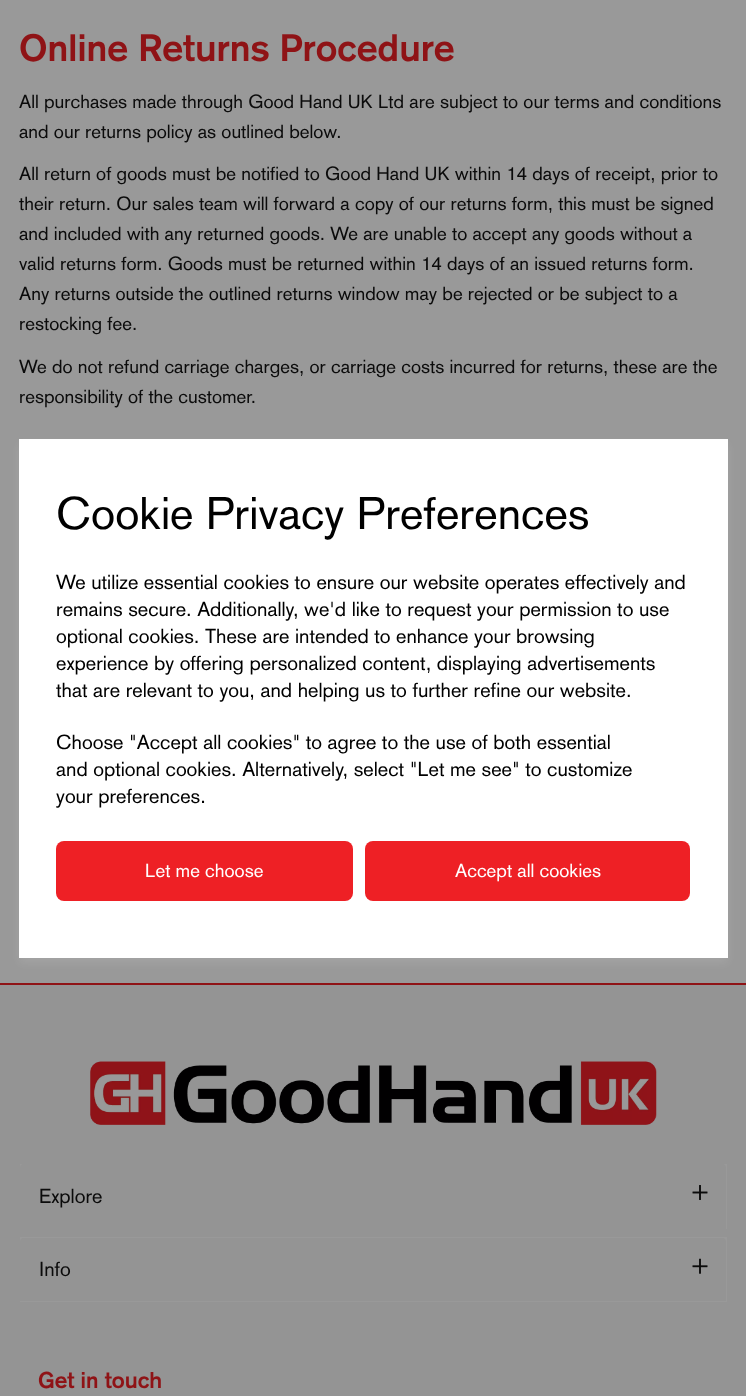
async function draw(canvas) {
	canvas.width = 746;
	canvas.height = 1396;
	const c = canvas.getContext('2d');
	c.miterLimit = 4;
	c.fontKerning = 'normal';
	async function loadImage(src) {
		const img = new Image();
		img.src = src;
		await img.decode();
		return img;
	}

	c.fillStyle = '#999';
	c.fillRect(0, 0, 746, 1396);
	c.font = 'bold 37.5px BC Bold';
	c.fillStyle = '#8f1316';
	c.fillText('Online Returns Procedure', 19, 61);
	c.font = '18.75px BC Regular';
	c.fillStyle = '#0b0b0b';
	for (const [text, x, y] of [
		['All purchases made through Good Hand UK Ltd are subject to our terms and conditions', 19, 108],
		['and our returns policy as outlined below.', 19, 138],
		['All return of goods must be notified to Good Hand UK within 14 days of receipt, prior to', 19, 180],
		['their return. Our sales team will forward a copy of our returns form, this must be signed', 19, 210],
		['and included with any returned goods. We are unable to accept any goods without a', 19, 240],
		['valid returns form. Goods must be returned within 14 days of an issued returns form.', 19, 270],
		['Any returns outside the outlined returns window may be rejected or be subject to a', 19, 300],
		['restocking fee.', 19, 330],
		['We do not refund carriage charges, or carriage costs incurred for returns, these are the', 19, 373],
		['responsibility of the customer.', 19, 403],
	]) {
		c.fillText(text, x, y);
	}
	c.fillStyle = '#ffffff1a';
	c.filter = 'blur(5px)';
	c.beginPath();
	c.rect(19, 444, 709, 519);
	c.fill();
	c.filter = 'none';
	c.fillStyle = '#fff';
	c.fillRect(19, 439, 709, 519);
	c.font = '45px BC Regular';
	c.fillStyle = '#000';
	c.fillText('Cookie Privacy Preferences', 56, 529);
	c.font = '20px BC Regular';
	for (const [text, x, y] of [
		['We utilize essential cookies to ensure our website operates effectively and', 56, 589],
		['remains secure. Additionally, we\'d like to request your permission to use', 56, 616],
		['optional cookies. These are intended to enhance your browsing', 56, 643],
		['experience by offering personalized content, displaying advertisements', 56, 670],
		['that are relevant to you, and helping us to further refine our website.', 56, 697],
		['Choose "Accept all cookies" to agree to the use of both essential', 56, 749],
		['and optional cookies. Alternatively, select "Let me see" to customize', 56, 776],
		['your preferences.', 56, 803],
	]) {
		c.fillText(text, x, y);
	}
	c.fillStyle = '#ee2025';
	c.beginPath();
	c.roundRect(56, 841, 297, 60, 8);
	c.fill();
	c.font = '18.75px BC Regular';
	c.fillStyle = '#fff';
	c.fillText('Let me choose', 145, 877);
	c.fillStyle = '#ee2025';
	c.beginPath();
	c.roundRect(365, 841, 325, 60, 8);
	c.fill();
	c.fillStyle = '#fff';
	c.fillText('Accept all cookies', 455, 877);
	c.fillStyle = '#8f1316';
	c.fillRect(0, 983, 746, 2);
	c.fillStyle = '#949494';
	c.fillRect(0, 985, 746, 411);
	c.drawImage(await loadImage('img1.png'), 90, 1061, 567, 64);
	c.fillStyle = '#999';
	c.fillRect(20, 1164, 707, 65);
	c.fillStyle = '#949494';
	c.beginPath();
	c.roundRect(20, 1164, 706, 65, [4, 4, 0, 0]);
	c.fill();
	c.font = '20px BC Regular';
	c.fillStyle = '#0b0b0b';
	c.fillText('Explore', 39, 1203);
	c.drawImage(await loadImage('img2.png'), 692, 1185, 16, 15);
	c.fillStyle = '#999';
	c.fillRect(20, 1237, 707, 65);
	c.fillStyle = '#949494';
	c.beginPath();
	c.roundRect(20, 1238, 706, 63, [4, 4, 0, 0]);
	c.fill();
	c.fillStyle = '#0b0b0b';
	c.fillText('Info', 39, 1276);
	c.drawImage(await loadImage('img3.png'), 692, 1258, 16, 16);
	c.font = 'bold 22.5px BC Bold';
	c.fillStyle = '#8f1316';
	c.fillText('Get in touch', 38, 1388);
}

draw(document.querySelector('canvas'));
